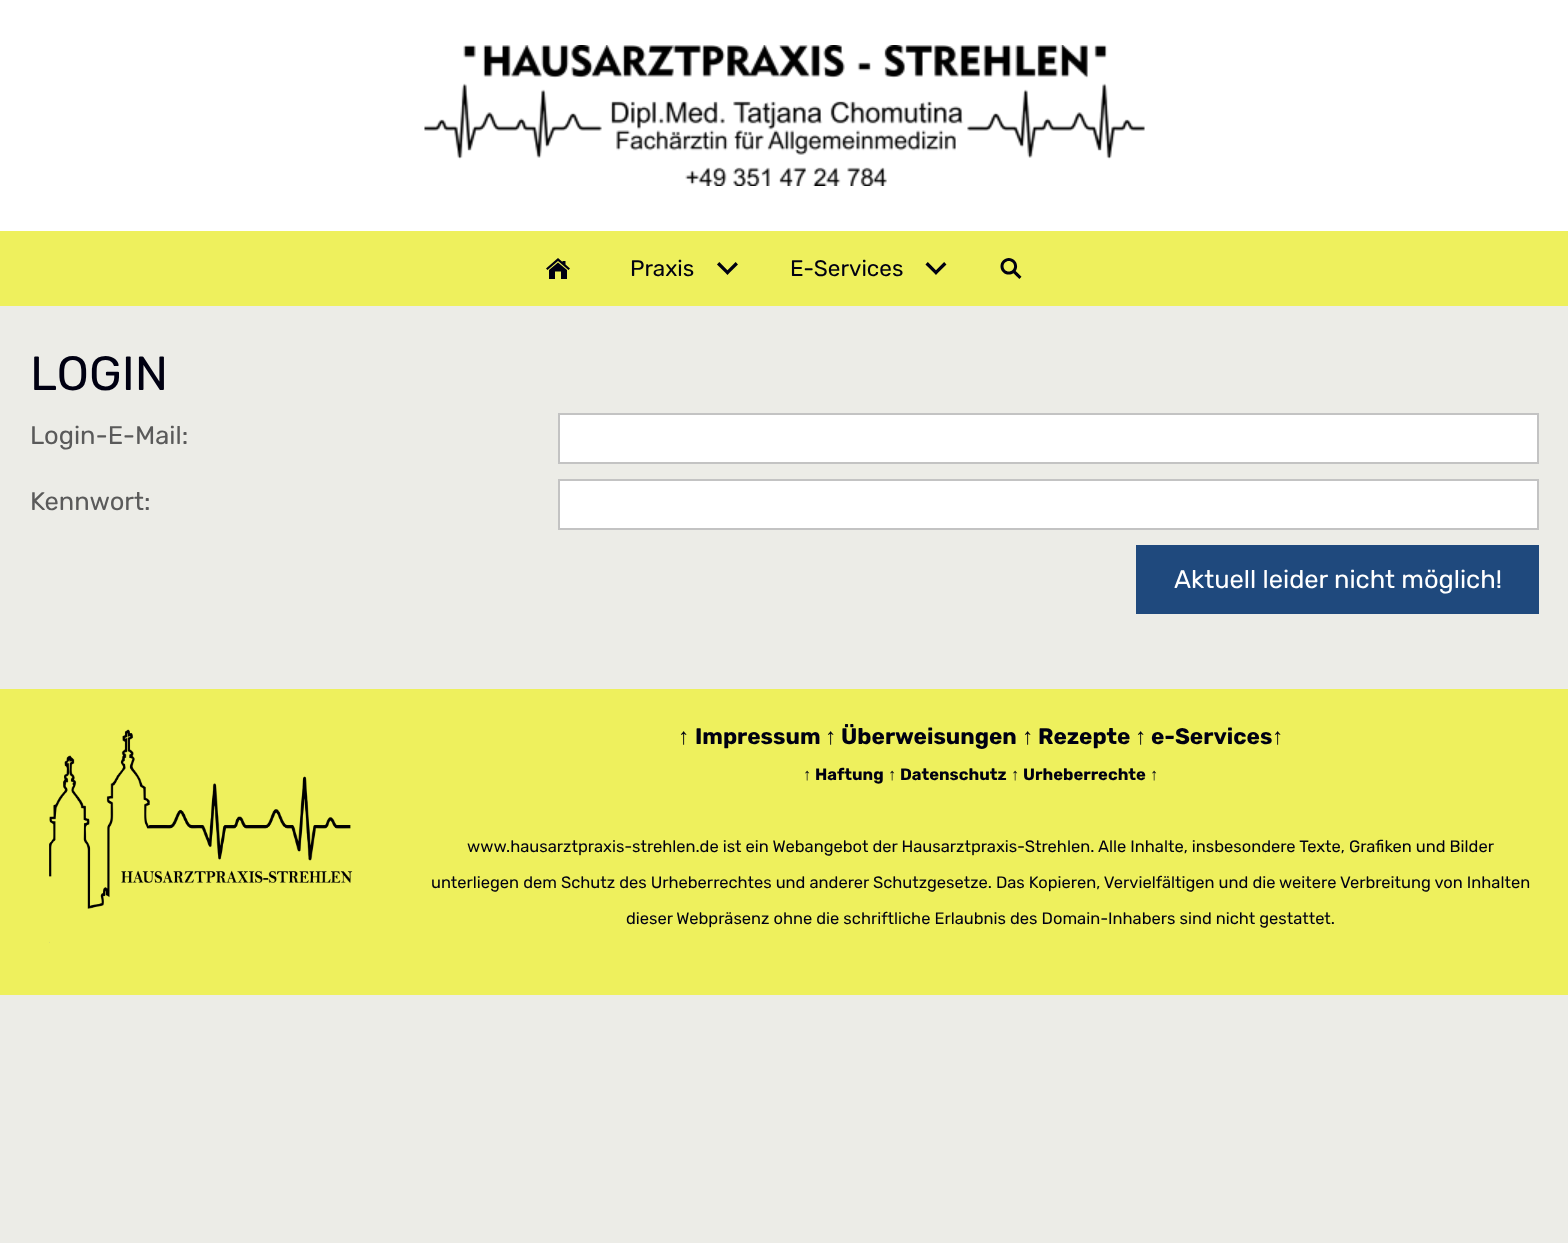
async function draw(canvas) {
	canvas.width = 1568;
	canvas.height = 1243;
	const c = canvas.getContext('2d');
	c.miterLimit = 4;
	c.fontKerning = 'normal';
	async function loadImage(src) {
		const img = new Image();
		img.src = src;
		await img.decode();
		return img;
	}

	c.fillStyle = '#ecece7';
	c.fillRect(0, 0, 1568, 1243);
	c.fillStyle = '#fff';
	c.fillRect(0, 0, 1568, 231);
	c.drawImage(await loadImage('img1.png'), 424, 45, 721, 141);
	c.fillStyle = '#eef05d';
	c.fillRect(0, 231, 1568, 75);
	c.drawImage(await loadImage('img2.png'), 546, 258, 24, 21);
	c.drawImage(await loadImage('img3.png'), 717, 262, 21, 13);
	c.font = '22.5px Rubik';
	c.fillStyle = '#000012';
	c.fillText('Praxis', 630, 276);
	c.drawImage(await loadImage('img4.png'), 925, 262, 22, 13);
	c.fillText('E-Services', 790, 276);
	c.drawImage(await loadImage('img5.png'), 1000, 258, 22, 21);
	c.font = '48px Rubik';
	c.fillText('LOGIN', 30, 390);
	c.font = '25.5px Rubik';
	c.fillStyle = '#5a5a5a';
	c.fillText('Login-E-Mail:', 30, 444);
	c.fillStyle = '#fff';
	c.beginPath();
	c.rect(559, 414, 979, 49);
	c.fill();
	c.strokeStyle = '#c3c3c3';
	c.lineWidth = 2;
	c.stroke();
	c.fillStyle = '#5a5a5a';
	c.fillText('Kennwort:', 30, 510);
	c.fillStyle = '#fff';
	c.beginPath();
	c.rect(559, 480, 979, 49);
	c.fill();
	c.stroke();
	c.fillStyle = '#1f497d';
	c.fillRect(1136, 545, 403, 69);
	c.fillStyle = '#fff';
	c.fillText('Aktuell leider nicht möglich!', 1174, 588);
	c.fillStyle = '#eef05d';
	c.fillRect(0, 689, 1568, 306);
	c.drawImage(await loadImage('img6.png'), 49, 729, 304, 214);
	c.font = '22.5px Liberation Sans';
	c.fillStyle = '#000012';
	c.fillText('↑', 678, 744);
	c.font = 'bold 22.5px Rubik';
	c.fillText('Impressum', 695, 744);
	c.font = 'bold 22.5px Liberation Sans';
	c.fillText('↑', 825, 744);
	c.font = 'bold 22.5px Rubik';
	c.fillText('Überweisungen', 841, 744);
	c.font = 'bold 22.5px Liberation Sans';
	c.fillText('↑', 1022, 744);
	c.font = 'bold 22.5px Rubik';
	c.fillText('Rezepte', 1038, 744);
	c.font = 'bold 22.5px Liberation Sans';
	c.fillText('↑', 1135, 744);
	c.font = 'bold 22.5px Rubik';
	c.fillText('e-Services', 1151, 744);
	c.font = '22.5px Liberation Sans';
	c.fillText('↑', 1272, 744);
	c.font = '16.5px Liberation Sans';
	c.fillText('↑', 803, 780);
	c.font = 'bold 16.5px Rubik';
	c.fillText('Haftung', 815, 780);
	c.font = '16.5px Liberation Sans';
	c.fillText('↑', 888, 780);
	c.font = 'bold 16.5px Rubik';
	c.fillText('Datenschutz', 900, 780);
	c.font = '16.5px Liberation Sans';
	c.fillText('↑', 1011, 780);
	c.font = 'bold 16.5px Rubik';
	c.fillText('Urheberrechte', 1023, 780);
	c.font = '16.5px Liberation Sans';
	c.fillText('↑', 1150, 780);
	c.font = '16.5px Rubik';
	for (const [text, x, y] of [
		['www.hausarztpraxis-strehlen.de ist ein Webangebot der Hausarztpraxis-Strehlen. Alle Inhalte, insbesondere Texte, Grafiken und Bilder', 467, 852],
		['unterliegen dem Schutz des Urheberrechtes und anderer Schutzgesetze. Das Kopieren, Vervielfältigen und die weitere Verbreitung von Inhalten', 431, 888],
		['dieser Webpräsenz ohne die schriftliche Erlaubnis des Domain-Inhabers sind nicht gestattet.', 626, 924],
	]) {
		c.fillText(text, x, y);
	}
}

draw(document.querySelector('canvas'));
